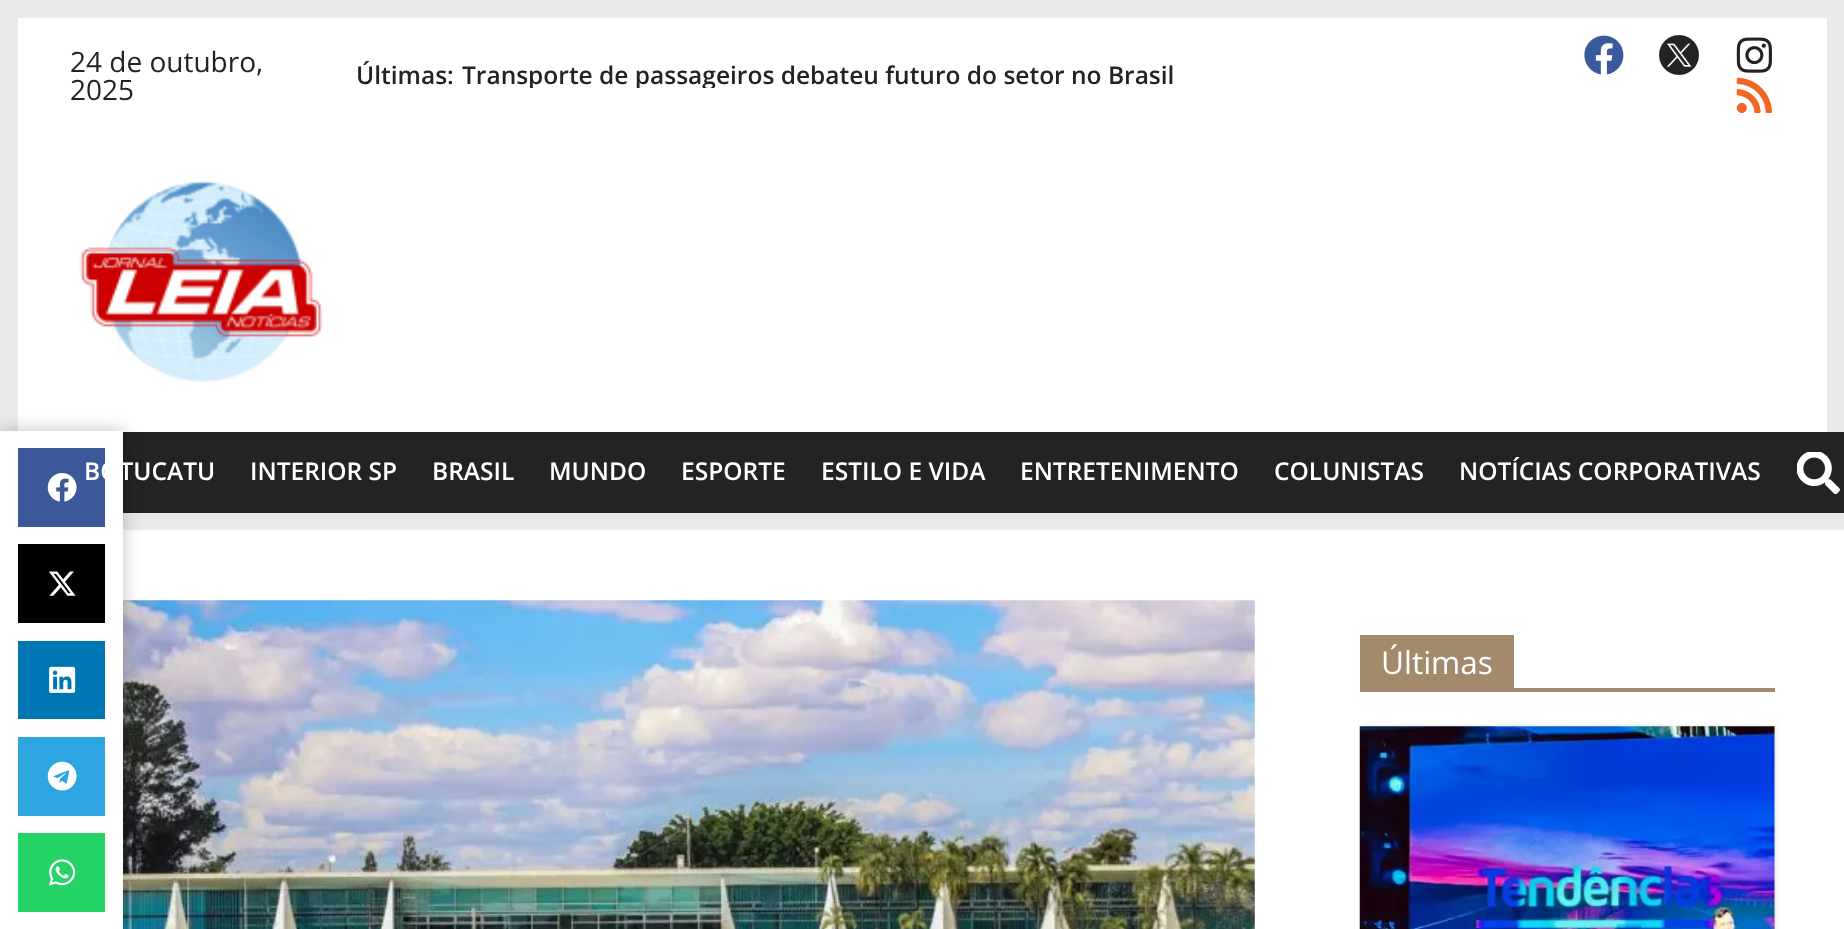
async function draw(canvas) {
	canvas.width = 1844;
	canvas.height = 929;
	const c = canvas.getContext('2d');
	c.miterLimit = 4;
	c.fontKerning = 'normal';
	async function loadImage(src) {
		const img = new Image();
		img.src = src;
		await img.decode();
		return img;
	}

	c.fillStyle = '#eaeaea';
	c.fillRect(0, 0, 1844, 929);
	c.fillStyle = '#fff';
	c.fillRect(18, 18, 1809, 414);
	c.font = '28px Open Sans';
	c.fillStyle = '#232323';
	c.fillText('24 de outubro,', 70, 72);
	c.fillText('2025', 70, 100);
	c.font = '600 24.5px Open Sans';
	c.fillText('Últimas:', 356, 84);
	c.save();
	c.beginPath();
	c.rect(462, 63, 1017, 25);
	c.clip();
	c.fillText('Transporte de passageiros debateu futuro do setor no Brasil', 462, 84);
	c.restore();
	c.drawImage(await loadImage('img1.png'), 1584, 35, 40, 40);
	c.drawImage(await loadImage('img2.png'), 1659, 35, 40, 40);
	c.drawImage(await loadImage('img3.png'), 1736, 37, 36, 36);
	c.drawImage(await loadImage('img4.png'), 1736, 77, 36, 36);
	c.drawImage(await loadImage('img5.png'), 79, 180, 244, 203);
	c.fillRect(123, 432, 1721, 81);
	c.fillStyle = '#fff';
	c.fillRect(123, 530, 1721, 399);
	c.drawImage(await loadImage('img12.png'), 123, 600, 1132, 329);
	c.fillStyle = '#00000040';
	c.filter = 'blur(9px)';
	c.beginPath();
	c.rect(0, 431, 123, 498);
	c.fill();
	c.filter = 'none';
	c.fillStyle = '#fff';
	c.fillRect(0, 431, 123, 498);
	c.fillStyle = '#3b5998';
	c.fillRect(18, 448, 87, 79);
	c.fillStyle = '#fff';
	for (const [text, x, y] of [
		['BOTUCATU', 84, 480],
		['INTERIOR SP', 250, 480],
		['BRASIL', 432, 480],
		['MUNDO', 549, 480],
		['ESPORTE', 681, 480],
		['ESTILO E VIDA', 821, 480],
		['ENTRETENIMENTO', 1020, 480],
		['COLUNISTAS', 1274, 480],
		['NOTÍCIAS CORPORATIVAS', 1459, 480],
	]) {
		c.fillText(text, x, y);
	}
	c.drawImage(await loadImage('img6.png'), 1797, 452, 43, 42);
	c.drawImage(await loadImage('img7.png'), 47, 473, 30, 29);
	c.fillStyle = '#000';
	c.fillRect(18, 544, 87, 79);
	c.drawImage(await loadImage('img8.png'), 48, 571, 28, 25);
	c.fillStyle = '#0077b5';
	c.fillRect(18, 641, 87, 78);
	c.drawImage(await loadImage('img9.png'), 49, 666, 27, 27);
	c.fillStyle = '#2ca5e0';
	c.fillRect(18, 737, 87, 79);
	c.drawImage(await loadImage('img10.png'), 47, 761, 30, 30);
	c.fillStyle = '#25d366';
	c.fillRect(18, 833, 87, 79);
	c.drawImage(await loadImage('img11.png'), 49, 859, 27, 27);
	c.fillStyle = '#a38a6d';
	c.fillRect(1360, 635, 154, 53);
	c.font = '31.5px Open Sans';
	c.fillStyle = '#fff';
	c.fillText('Últimas', 1381, 674);
	c.fillStyle = '#a38a6d';
	c.fillRect(1360, 688, 415, 4);
	c.fillStyle = '#0000001a';
	c.filter = 'blur(2.5px)';
	c.beginPath();
	c.rect(1362, 726, 414, 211);
	c.fill();
	c.filter = 'none';
	c.drawImage(await loadImage('img13.png'), 1359, 726, 416, 203);
}

draw(document.querySelector('canvas'));
